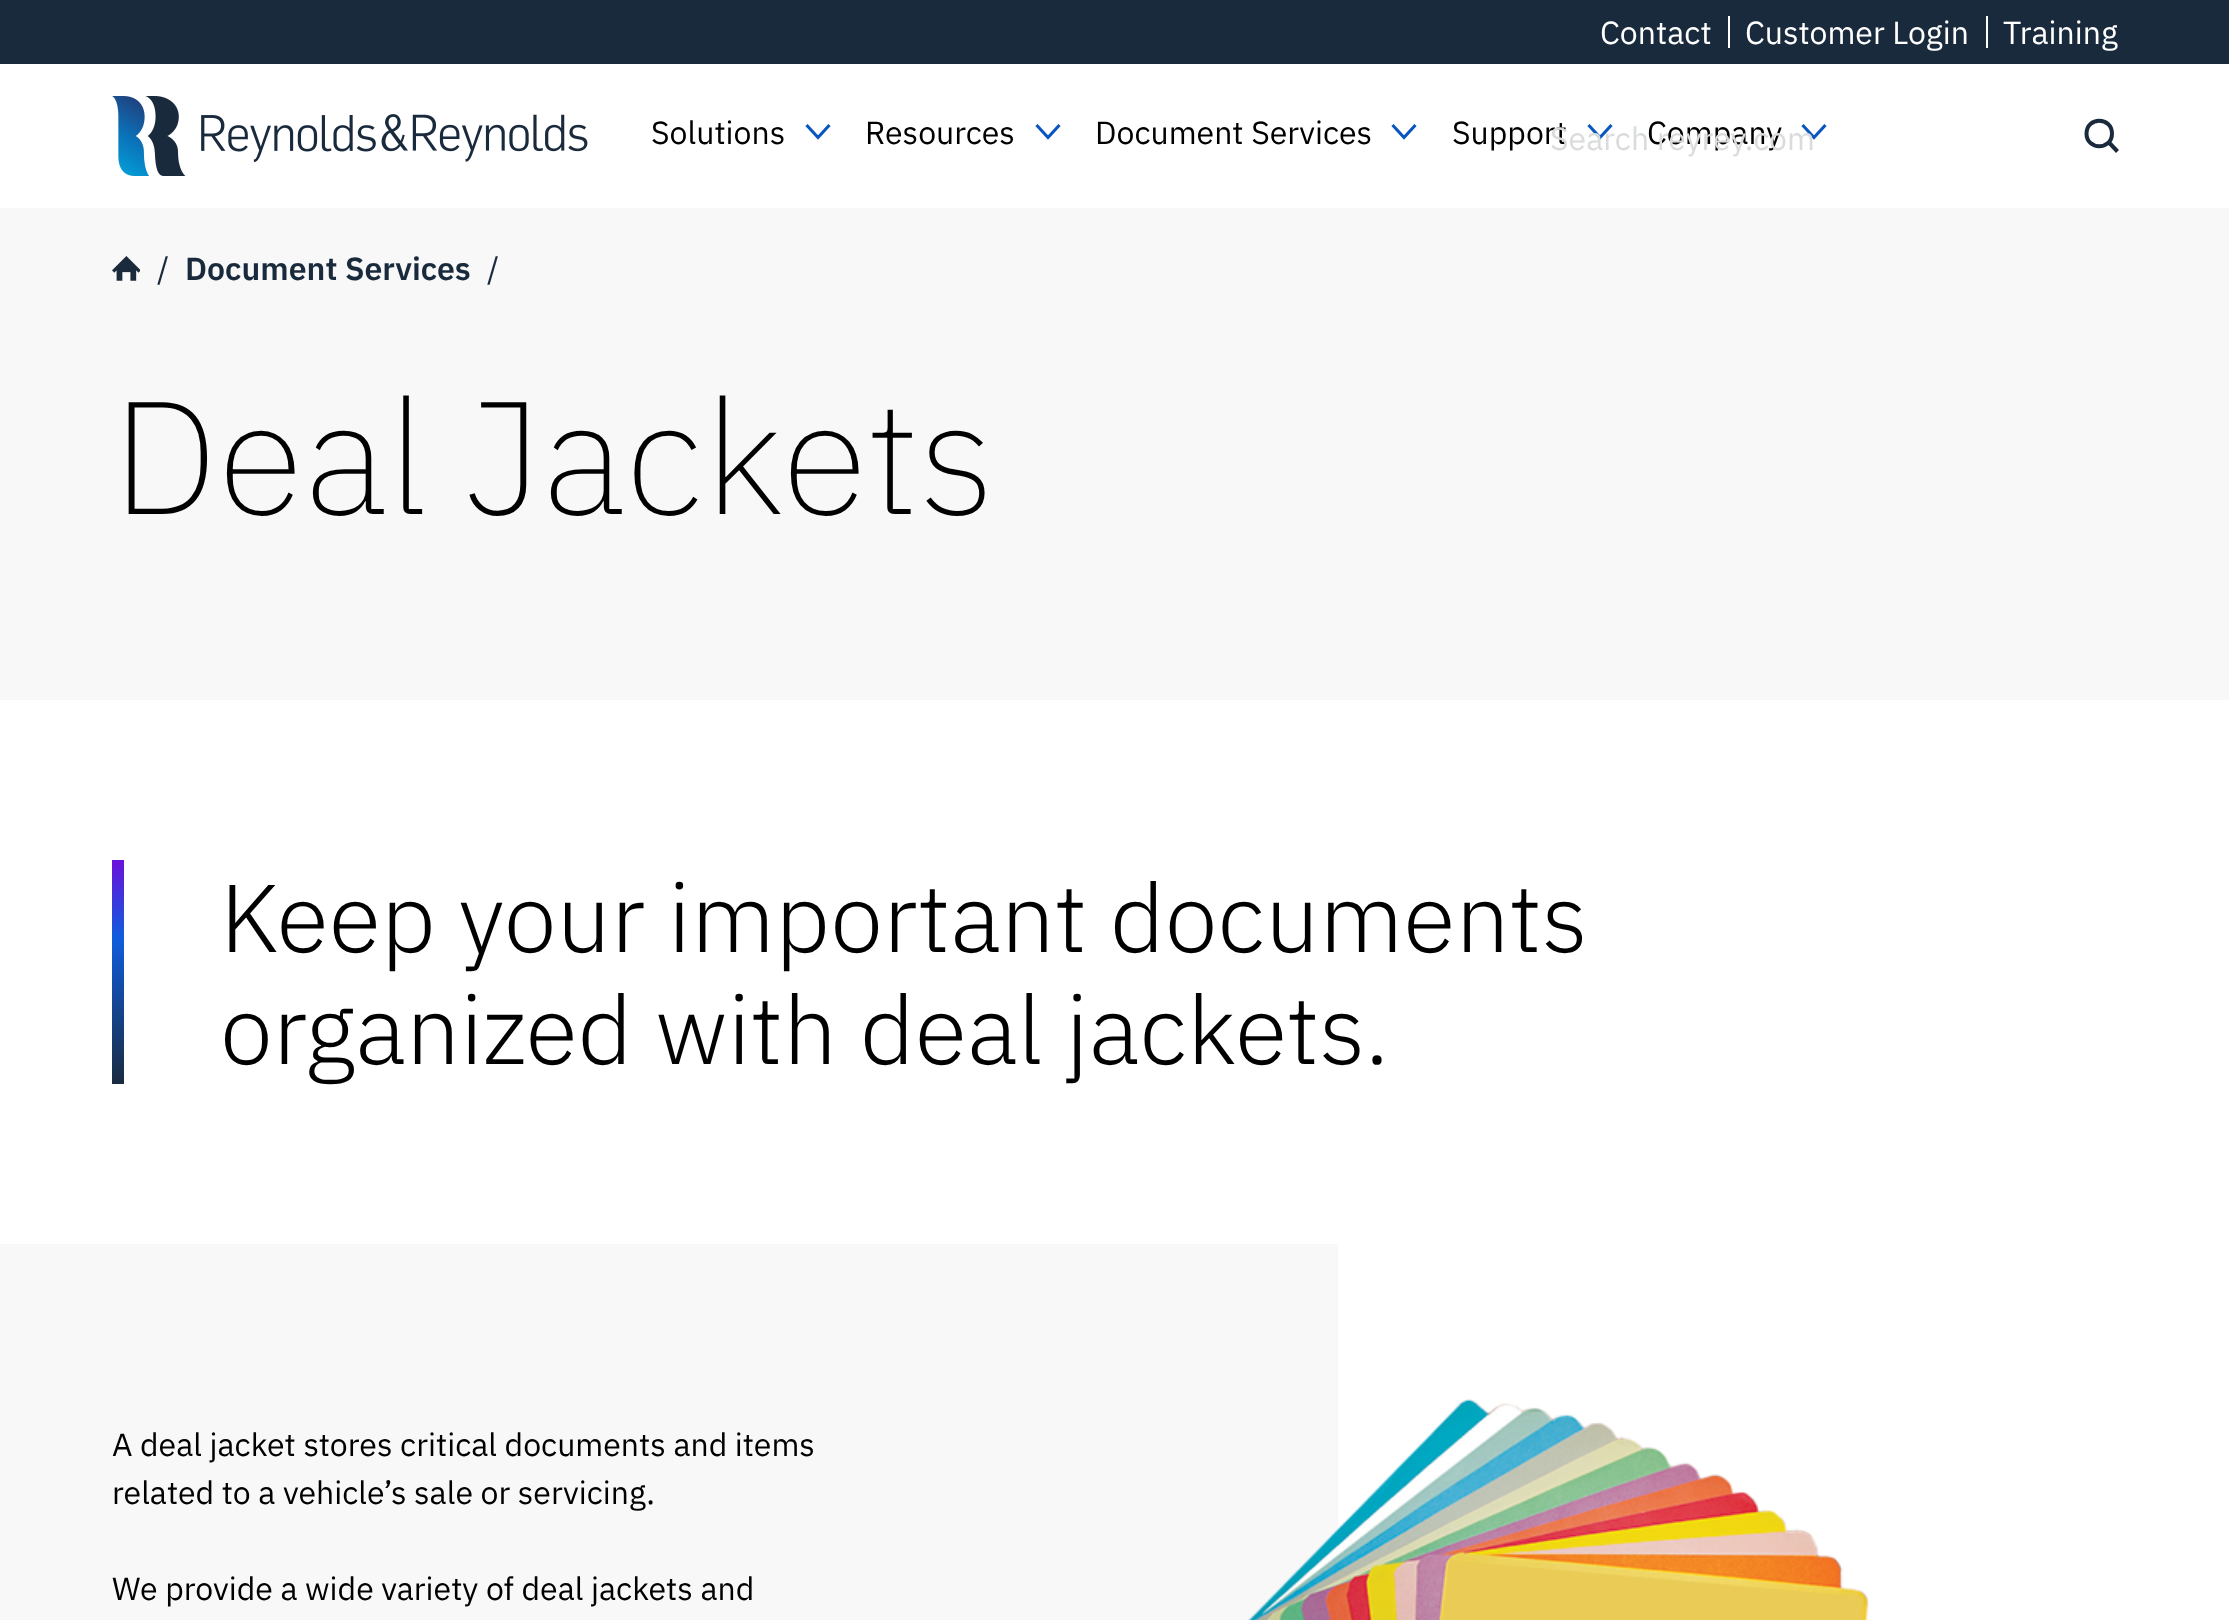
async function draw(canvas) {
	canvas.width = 2229;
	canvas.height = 1620;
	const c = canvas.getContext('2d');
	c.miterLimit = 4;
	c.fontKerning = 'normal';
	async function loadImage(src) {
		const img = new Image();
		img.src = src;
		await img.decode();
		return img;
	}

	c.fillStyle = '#fff';
	c.fillRect(0, 0, 2229, 1620);
	c.fillStyle = '#1a2a3d';
	c.fillRect(0, 0, 2229, 64);
	c.font = '32px IBM Plex Sans';
	c.fillStyle = '#fff';
	c.fillText('Contact', 1600, 44);
	c.fillRect(1728, 16, 2, 32);
	c.fillText('Customer Login', 1745, 44);
	c.fillRect(1986, 16, 2, 32);
	c.fillText('Training', 2003, 44);
	c.drawImage(await loadImage('img1.png'), 112, 96, 476, 80);
	c.fillStyle = '#000';
	c.fillText('Solutions', 651, 144);
	c.beginPath();
	c.moveTo(829.5, 125);
	c.lineTo(818, 137.5);
	c.lineTo(806.5, 125);
	c.strokeStyle = '#0956c0';
	c.lineWidth = 3.1;
	c.stroke();
	c.fillText('Resources', 865, 144);
	c.beginPath();
	c.moveTo(1059.5, 125);
	c.lineTo(1048, 137.5);
	c.lineTo(1036.5, 125);
	c.stroke();
	c.fillText('Document Services', 1095, 144);
	c.beginPath();
	c.moveTo(1415.5, 125);
	c.lineTo(1404, 137.5);
	c.lineTo(1392.5, 125);
	c.stroke();
	c.fillText('Support', 1452, 144);
	c.beginPath();
	c.moveTo(1611.5, 125);
	c.lineTo(1600, 137.5);
	c.lineTo(1588.5, 125);
	c.stroke();
	c.fillText('Company', 1647, 144);
	c.beginPath();
	c.moveTo(1825.5, 125);
	c.lineTo(1814, 137.5);
	c.lineTo(1802.5, 125);
	c.stroke();
	c.fillStyle = '#dadbdd';
	c.fillText('Search reyrey.com', 1550, 150);
	c.beginPath();
	c.moveTo(2112, 133.5);
	c.bezierCurveTo(2112, 150.5, 2086.5, 150.5, 2086.5, 133.5);
	c.bezierCurveTo(2086.5, 116.5, 2112, 116.5, 2112, 133.5);
	c.closePath();
	c.moveTo(2108.5, 142);
	c.lineTo(2117.5, 151.5);
	c.strokeStyle = '#1a2a3d';
	c.lineWidth = 4;
	c.stroke();
	c.fillStyle = '#f8f8f8';
	c.fillRect(0, 208, 2229, 492);
	c.drawImage(await loadImage('img2.png'), 112, 256, 28, 25);
	c.fillStyle = '#1a2a3d';
	c.fillText('/', 157, 280);
	c.font = '600 32px IBM Plex Sans';
	c.fillText('Document Services', 185, 280);
	c.font = '32px IBM Plex Sans';
	c.fillText('/', 487, 280);
	c.font = '200 160px IBM Plex Sans';
	c.fillStyle = '#000';
	c.fillText('Deal Jackets', 112, 514);
	c.drawImage(await loadImage('img3.png'), 112, 860, 12, 224);
	c.font = '300 96px IBM Plex Sans';
	c.fillText('Keep your important documents', 220, 952);
	c.fillText('organized with deal jackets.', 220, 1064);
	c.fillStyle = '#f8f8f8';
	c.fillRect(0, 1244, 1338, 376);
	c.font = '32px IBM Plex Sans';
	c.fillStyle = '#000';
	for (const [text, x, y] of [
		['A deal jacket stores critical documents and items', 112, 1456],
		['related to a vehicle’s sale or servicing.', 112, 1504],
		['We provide a wide variety of deal jackets and', 112, 1600],
	]) {
		c.fillText(text, x, y);
	}
	c.drawImage(await loadImage('img4.png'), 1248, 1399, 622, 221);
}

draw(document.querySelector('canvas'));
